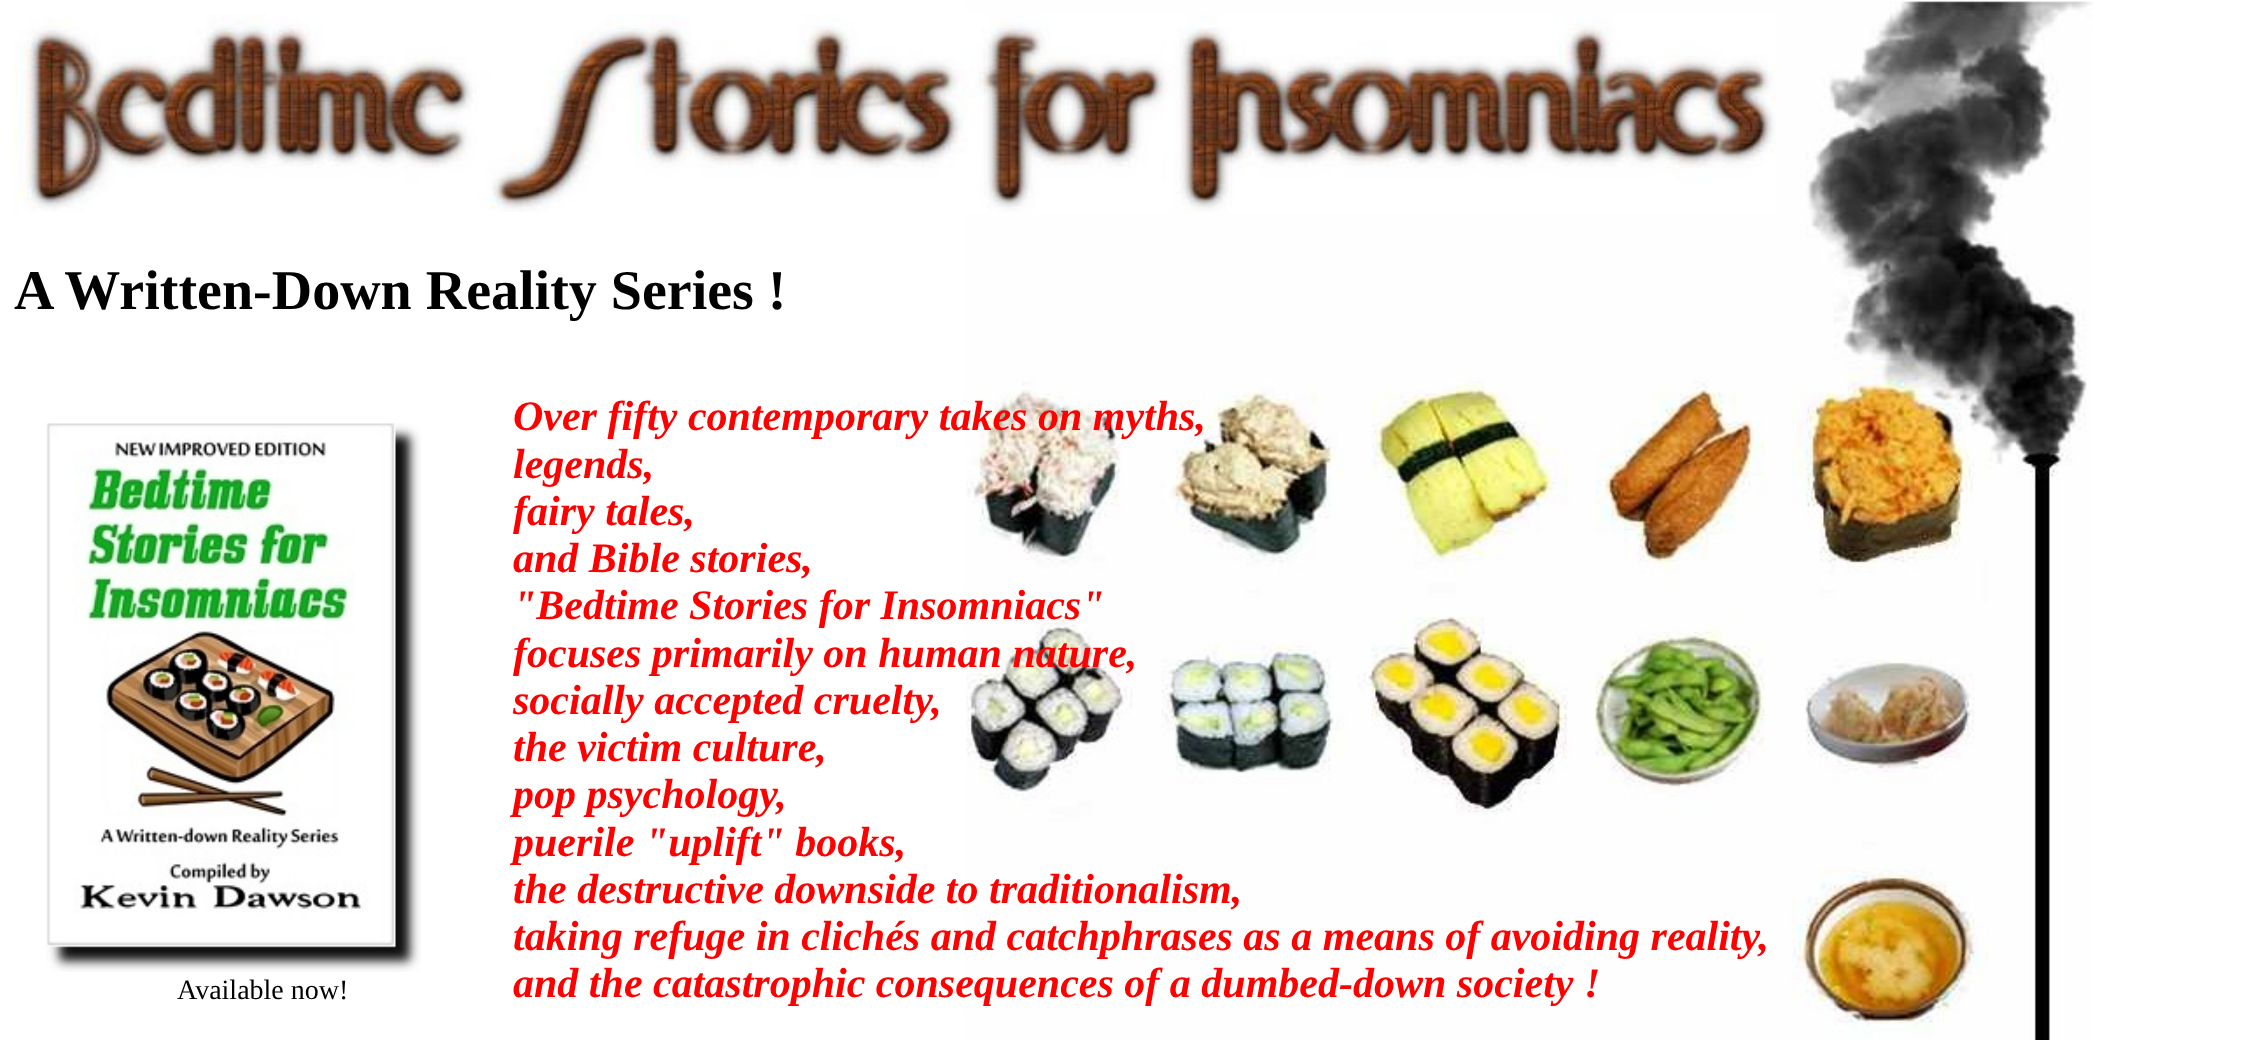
async function draw(canvas) {
	canvas.width = 2257;
	canvas.height = 1040;
	const c = canvas.getContext('2d');
	c.miterLimit = 4;
	c.fontKerning = 'normal';
	async function loadImage(src) {
		const img = new Image();
		img.src = src;
		await img.decode();
		return img;
	}

	c.fillStyle = '#fff';
	c.fillRect(0, 0, 2257, 1040);
	c.drawImage(await loadImage('img1.png'), 966, 1, 1127, 1039);
	c.drawImage(await loadImage('img2.png'), 14, 14, 1762, 198);
	c.font = 'bold 56px Liberation Serif';
	c.fillStyle = '#000';
	c.fillText('A Written-Down Reality Series !', 14, 309);
	c.drawImage(await loadImage('img3.png'), 46, 423, 375, 549);
	c.font = '28px Liberation Serif';
	c.fillText('Available now!', 177, 999);
	c.font = 'italic bold 42px Liberation Serif';
	c.fillStyle = '#f00';
	for (const [text, x, y] of [
		['Over fifty contemporary takes on myths,', 513, 430],
		['legends,', 513, 478],
		['fairy tales,', 513, 525],
		['and Bible stories,', 513, 572],
		['"Bedtime Stories for Insomniacs"', 513, 619],
		['focuses primarily on human nature,', 513, 667],
		['socially accepted cruelty,', 513, 714],
		['the victim culture,', 513, 761],
		['pop psychology,', 513, 808],
		['puerile "uplift" books,', 513, 856],
		['the destructive downside to traditionalism,', 513, 903],
		['taking refuge in clichés and catchphrases as a means of avoiding reality,', 513, 950],
		['and the catastrophic consequences of a dumbed-down society !', 513, 997],
	]) {
		c.fillText(text, x, y);
	}
}

draw(document.querySelector('canvas'));
